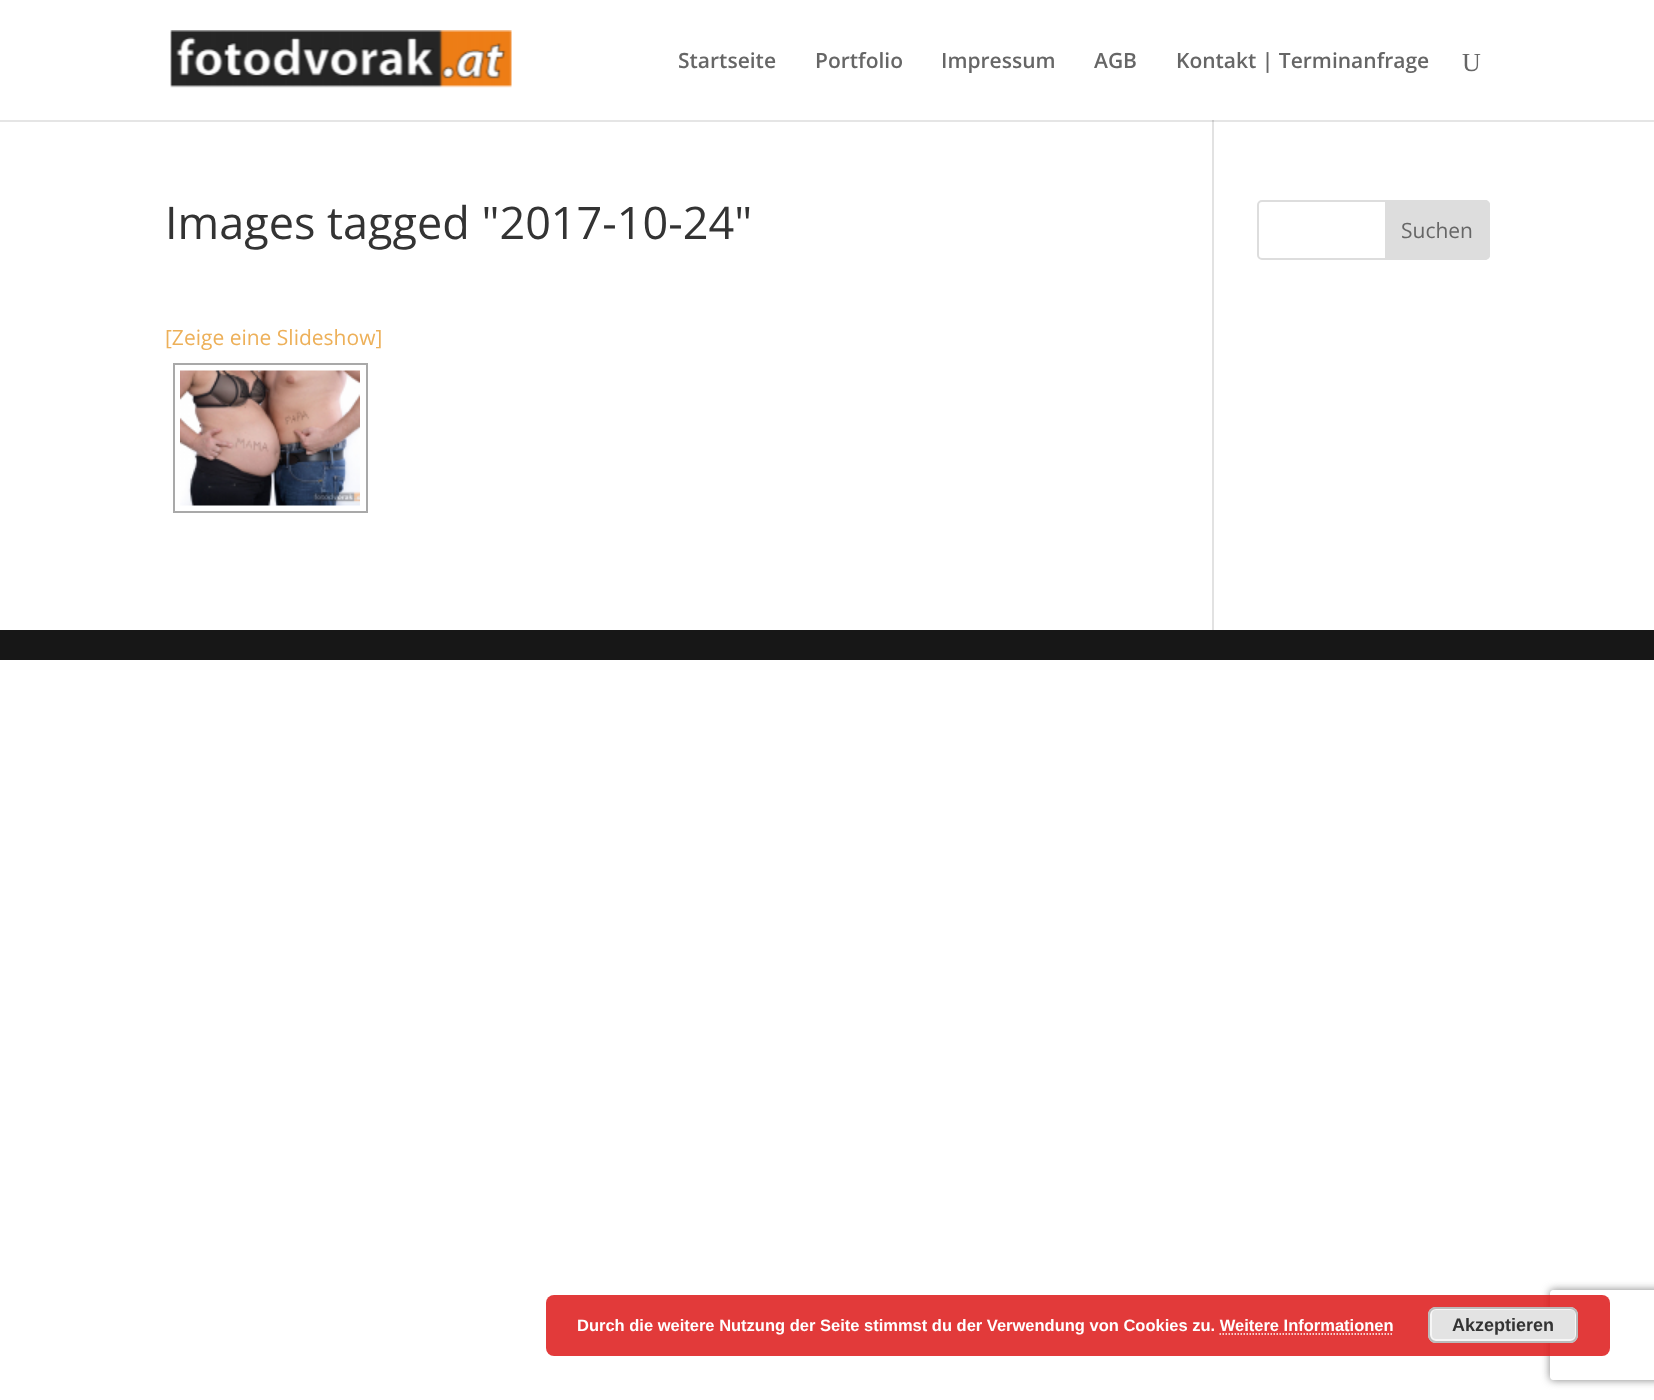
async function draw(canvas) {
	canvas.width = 1654;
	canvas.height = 1400;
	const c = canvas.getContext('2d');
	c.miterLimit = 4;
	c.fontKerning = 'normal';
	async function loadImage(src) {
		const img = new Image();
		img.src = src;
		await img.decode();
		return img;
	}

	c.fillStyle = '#fff';
	c.fillRect(0, 0, 1654, 1400);
	c.fillStyle = '#e2e2e2';
	c.fillRect(1212, 113, 2, 517);
	c.fillStyle = '#0000001a';
	c.beginPath();
	c.moveTo(0, 120);
	c.lineTo(0, 122);
	c.lineTo(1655, 122);
	c.lineTo(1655, 2);
	c.lineTo(1654, 2);
	c.lineTo(1654, 120);
	c.closePath();
	c.fill();
	c.fillStyle = '#fff';
	c.fillRect(1212, 113, 2, 7);
	c.drawImage(await loadImage('img1.png'), 170, 30, 342, 58);
	c.font = '600 21px Open Sans';
	c.fillStyle = '#666';
	for (const [text, x, y] of [
		['Startseite', 678, 68],
		['Portfolio', 815, 68],
		['Impressum', 941, 68],
		['AGB', 1094, 68],
		['Kontakt | Terminanfrage', 1176, 68],
	]) {
		c.fillText(text, x, y);
	}
	c.font = '26px Liberation Serif';
	c.fillText('U', 1462, 71);
	c.font = '45px Open Sans';
	c.fillStyle = '#333';
	c.fillText('Images tagged "2017-10-24"', 165, 239);
	c.font = '21px Open Sans';
	c.fillStyle = '#edb059';
	c.fillText('[Zeige eine Slideshow]', 165, 345);
	c.strokeStyle = '#a9a9a9';
	c.lineWidth = 2;
	c.strokeRect(174, 364, 193, 148);
	c.drawImage(await loadImage('img2.png'), 180, 370, 180, 136);
	c.beginPath();
	c.roundRect(1258, 201, 231, 58, 4);
	c.strokeStyle = '#ddd';
	c.stroke();
	c.fillStyle = '#ddd';
	c.beginPath();
	c.roundRect(1386, 201, 103, 58, [0, 4, 4, 0]);
	c.fill();
	c.stroke();
	c.fillStyle = '#666';
	c.fillText('Suchen', 1401, 238);
	c.fillStyle = '#171717';
	c.fillRect(0, 630, 1654, 30);
	c.save();
	c.beginPath();
	c.moveTo(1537, 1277);
	c.lineTo(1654, 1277);
	c.lineTo(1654, 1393);
	c.lineTo(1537, 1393);
	c.closePath();
	c.moveTo(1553, 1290);
	c.lineTo(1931, 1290);
	c.bezierCurveTo(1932.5, 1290, 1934, 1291.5, 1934, 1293);
	c.lineTo(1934, 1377);
	c.bezierCurveTo(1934, 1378.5, 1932.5, 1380, 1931, 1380);
	c.lineTo(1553, 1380);
	c.bezierCurveTo(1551.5, 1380, 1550, 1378.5, 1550, 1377);
	c.lineTo(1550, 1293);
	c.bezierCurveTo(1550, 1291.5, 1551.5, 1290, 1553, 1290);
	c.closePath();
	c.clip('evenodd');
	c.fillStyle = '#808080';
	c.filter = 'blur(4px)';
	c.beginPath();
	c.roundRect(1550, 1290, 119, 90, 3);
	c.fill();
	c.filter = 'none';
	c.restore();
	c.fillStyle = '#dd1818d9';
	c.beginPath();
	c.roundRect(546, 1295, 1064, 61, 8);
	c.fill();
	c.font = 'bold 16.5px Liberation Sans';
	c.fillStyle = '#fff';
	c.fillText('Durch die weitere Nutzung der Seite stimmst du der Verwendung von Cookies zu. Weitere Informationen', 577, 1331);
	c.fillStyle = '#e3e3e3';
	c.beginPath();
	c.roundRect(1428, 1307, 150, 36, 8);
	c.fill();
	c.beginPath();
	c.roundRect(1431, 1309, 145, 31, 5);
	c.strokeStyle = '#f6f6f6';
	c.stroke();
	c.beginPath();
	c.roundRect(1429, 1308, 148, 34, 7);
	c.strokeStyle = '#bbb';
	c.stroke();
	c.font = 'bold 18px Liberation Sans';
	c.fillStyle = '#333';
	c.fillText('Akzeptieren', 1452, 1331);
	c.beginPath();
	c.moveTo(1219.5, 1334);
	c.lineTo(1393.5, 1334);
	c.strokeStyle = '#fff';
	c.lineWidth = 1.5;
	c.setLineDash([1.5, 1.5]);
	c.stroke();
}

draw(document.querySelector('canvas'));
